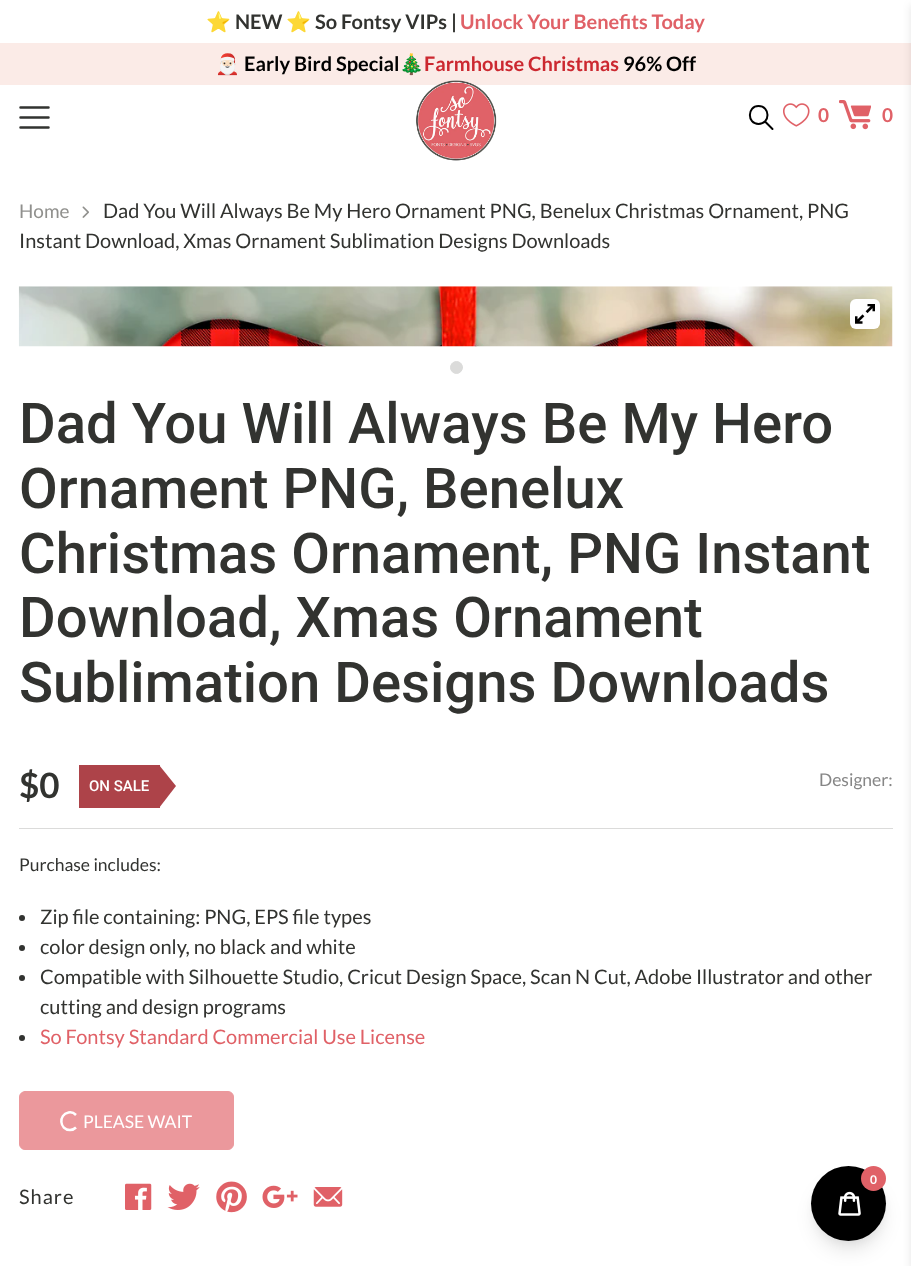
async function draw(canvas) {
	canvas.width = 911;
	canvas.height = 1266;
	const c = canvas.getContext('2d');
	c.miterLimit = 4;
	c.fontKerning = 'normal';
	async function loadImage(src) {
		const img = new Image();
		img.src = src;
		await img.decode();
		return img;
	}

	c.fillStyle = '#fff';
	c.fillRect(0, 0, 911, 1266);
	c.font = 'bold 20px Noto Color Emoji';
	c.fillStyle = '#323330';
	c.fillText('⭐️', 206, 29);
	c.font = 'bold 20px Lato';
	c.fillText('NEW', 235, 29);
	c.font = 'bold 20px Noto Color Emoji';
	c.fillText('⭐️', 286, 29);
	c.font = 'bold 20px Lato';
	c.fillText('So Fontsy VIPs |', 315, 29);
	c.fillStyle = '#e06167';
	c.fillText('Unlock Your Benefits Today', 460, 29);
	c.fillStyle = '#fbebe7';
	c.fillRect(0, 43, 911, 42);
	c.font = 'bold 20px Noto Color Emoji';
	c.fillStyle = '#000';
	c.fillText('🎅🏻', 215, 71);
	c.font = 'bold 20px Lato';
	c.fillText('Early Bird Special', 244, 71);
	c.font = 'bold 20px Noto Color Emoji';
	c.fillText('🎄', 399, 71);
	c.font = 'bold 20px Lato';
	c.fillStyle = '#cc2830';
	c.fillText('Farmhouse Christmas', 424, 71);
	c.fillStyle = '#000';
	c.fillText('96% Off', 623, 71);
	c.beginPath();
	c.moveTo(20.5, 107.5);
	c.lineTo(48.5, 107.5);
	c.moveTo(20.5, 117.5);
	c.lineTo(48.5, 117.5);
	c.moveTo(20.5, 127.5);
	c.lineTo(48.5, 127.5);
	c.strokeStyle = '#323330';
	c.lineWidth = 2.5;
	c.lineCap = 'round';
	c.lineJoin = 'round';
	c.stroke();
	c.drawImage(await loadImage('img1.png'), 416, 80, 81, 81);
	c.beginPath();
	c.moveTo(758.5, 106);
	c.bezierCurveTo(747, 106, 747, 124, 758.5, 124);
	c.bezierCurveTo(770.5, 124, 770.5, 106, 758.5, 106);
	c.closePath();
	c.moveTo(765, 121.5);
	c.lineTo(772.5, 129);
	c.strokeStyle = '#000';
	c.lineWidth = 2;
	c.stroke();
	c.drawImage(await loadImage('img2.png'), 783, 103, 27, 24);
	c.font = 'bold 19px Lato';
	c.fillStyle = '#e06167';
	c.fillText('0', 818, 122);
	c.drawImage(await loadImage('img3.png'), 839, 100, 32, 30);
	c.fillText('0', 882, 122);
	c.font = '19px Lato';
	c.fillStyle = '#90908d';
	c.fillText('Home', 19, 218);
	c.drawImage(await loadImage('img4.png'), 82, 206, 7, 12);
	c.font = '20px Lato';
	c.fillStyle = '#323330';
	c.fillText('Dad You Will Always Be My Hero Ornament PNG, Benelux Christmas Ornament, PNG', 103, 218);
	c.fillText('Instant Download, Xmas Ornament Sublimation Designs Downloads', 19, 248);
	c.drawImage(await loadImage('img5.png'), 18, 286, 875, 61);
	c.fillStyle = '#fff';
	c.beginPath();
	c.roundRect(850, 299, 30, 30, 6);
	c.fill();
	c.drawImage(await loadImage('img6.png'), 855, 304, 20, 20);
	c.fillStyle = '#dbdbda';
	c.beginPath();
	c.arc(456.5, 367.5, 6, 0, 2 * Math.PI);
	c.fill();
	c.strokeStyle = '#dbdbda';
	c.lineWidth = 1;
	c.stroke();
	c.font = '500 56.25px Roboto';
	c.fillStyle = '#323330';
	for (const [text, x, y] of [
		['Dad You Will Always Be My Hero', 19, 443],
		['Ornament PNG, Benelux', 19, 508],
		['Christmas Ornament, PNG Instant', 19, 573],
		['Download, Xmas Ornament', 19, 637],
		['Sublimation Designs Downloads', 19, 702],
	]) {
		c.fillText(text, x, y);
	}
	c.fillStyle = '#dbdbda';
	c.fillRect(19, 828, 874, 1);
	c.font = 'bold 35px Lato';
	c.fillStyle = '#323330';
	c.fillText('$0', 19, 798);
	c.fillStyle = '#ad4349';
	c.fillRect(79, 765, 81, 43);
	c.font = '500 15px Roboto';
	c.fillStyle = '#fff';
	c.fillText('ON SALE', 89, 791);
	c.fillStyle = '#ad4349';
	c.beginPath();
	c.moveTo(159, 808);
	c.lineTo(159, 765);
	c.lineTo(176, 786);
	c.closePath();
	c.fill();
	c.font = '17.5px Lato';
	c.fillStyle = '#868686';
	c.fillText('Designer:', 819, 786);
	c.fillStyle = '#323330';
	c.fillText('Purchase includes:', 19, 871);
	c.beginPath();
	c.arc(22, 918, 3, 0, 2 * Math.PI);
	c.fill();
	c.font = '20px Lato';
	c.fillText('Zip file containing: PNG, EPS file types', 40, 924);
	c.beginPath();
	c.arc(22, 948, 3, 0, 2 * Math.PI);
	c.fill();
	c.fillText('color design only, no black and white', 40, 954);
	c.beginPath();
	c.arc(22, 978, 3, 0, 2 * Math.PI);
	c.fill();
	c.fillText('Compatible with Silhouette Studio, Cricut Design Space, Scan N Cut, Adobe Illustrator and other', 40, 984);
	c.fillText('cutting and design programs', 40, 1014);
	c.beginPath();
	c.arc(22, 1038, 3, 0, 2 * Math.PI);
	c.fill();
	c.fillStyle = '#e06167';
	c.fillText('So Fontsy Standard Commercial Use License', 40, 1044);
	c.fillStyle = '#eb989c';
	c.beginPath();
	c.roundRect(19.5, 1091.5, 214, 58, 5.5);
	c.fill();
	c.strokeStyle = '#eb989c';
	c.lineJoin = 'miter';
	c.stroke();
	c.beginPath();
	c.moveTo(76, 1127.5);
	c.bezierCurveTo(74.5, 1129, 72.5, 1130, 70, 1130);
	c.bezierCurveTo(59.5, 1130, 58, 1114.5, 68.5, 1112.5);
	c.bezierCurveTo(71, 1112, 74, 1113, 76, 1115);
	c.strokeStyle = '#fff';
	c.lineWidth = 2.5;
	c.lineCap = 'butt';
	c.stroke();
	c.font = '17.5px Lato';
	c.fillStyle = '#fff';
	c.fillText('PLEASE WAIT', 83, 1128);
	c.letterSpacing = '1px';
	c.font = '20px Lato';
	c.fillStyle = '#323330';
	c.fillText('Share', 19, 1204);
	c.drawImage(await loadImage('img7.png'), 125, 1183, 27, 27);
	c.drawImage(await loadImage('img8.png'), 167, 1183, 33, 27);
	c.drawImage(await loadImage('img9.png'), 216, 1181, 31, 32);
	c.drawImage(await loadImage('img10.png'), 262, 1185, 36, 23);
	c.drawImage(await loadImage('img11.png'), 313, 1187, 30, 20);
	c.fillStyle = '#0000000d';
	c.filter = 'blur(4px)';
	c.beginPath();
	c.roundRect(814, 1174, 70, 70, 35);
	c.fill();
	c.filter = 'none';
	c.fillStyle = '#0000001a';
	c.filter = 'blur(9.5px)';
	c.beginPath();
	c.roundRect(815, 1183, 68, 67, 33.5);
	c.fill();
	c.filter = 'none';
	c.fillStyle = '#000';
	c.beginPath();
	c.arc(848.5, 1203.5, 37.5, 0, 2 * Math.PI);
	c.fill();
	c.fillStyle = '#e06167';
	c.beginPath();
	c.arc(873.5, 1178.5, 12.5, 0, 2 * Math.PI);
	c.fill();
	c.letterSpacing = '0px';
	c.font = 'bold 12px Lato';
	c.fillStyle = '#fff';
	c.fillText('0', 870, 1184);
	c.drawImage(await loadImage('img12.png'), 838, 1191, 23, 25);
	c.fillStyle = '#0000001a';
	c.filter = 'blur(4px)';
	c.beginPath();
	c.rect(911, 5, 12, 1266);
	c.fill();
	c.filter = 'none';
}

draw(document.querySelector('canvas'));
